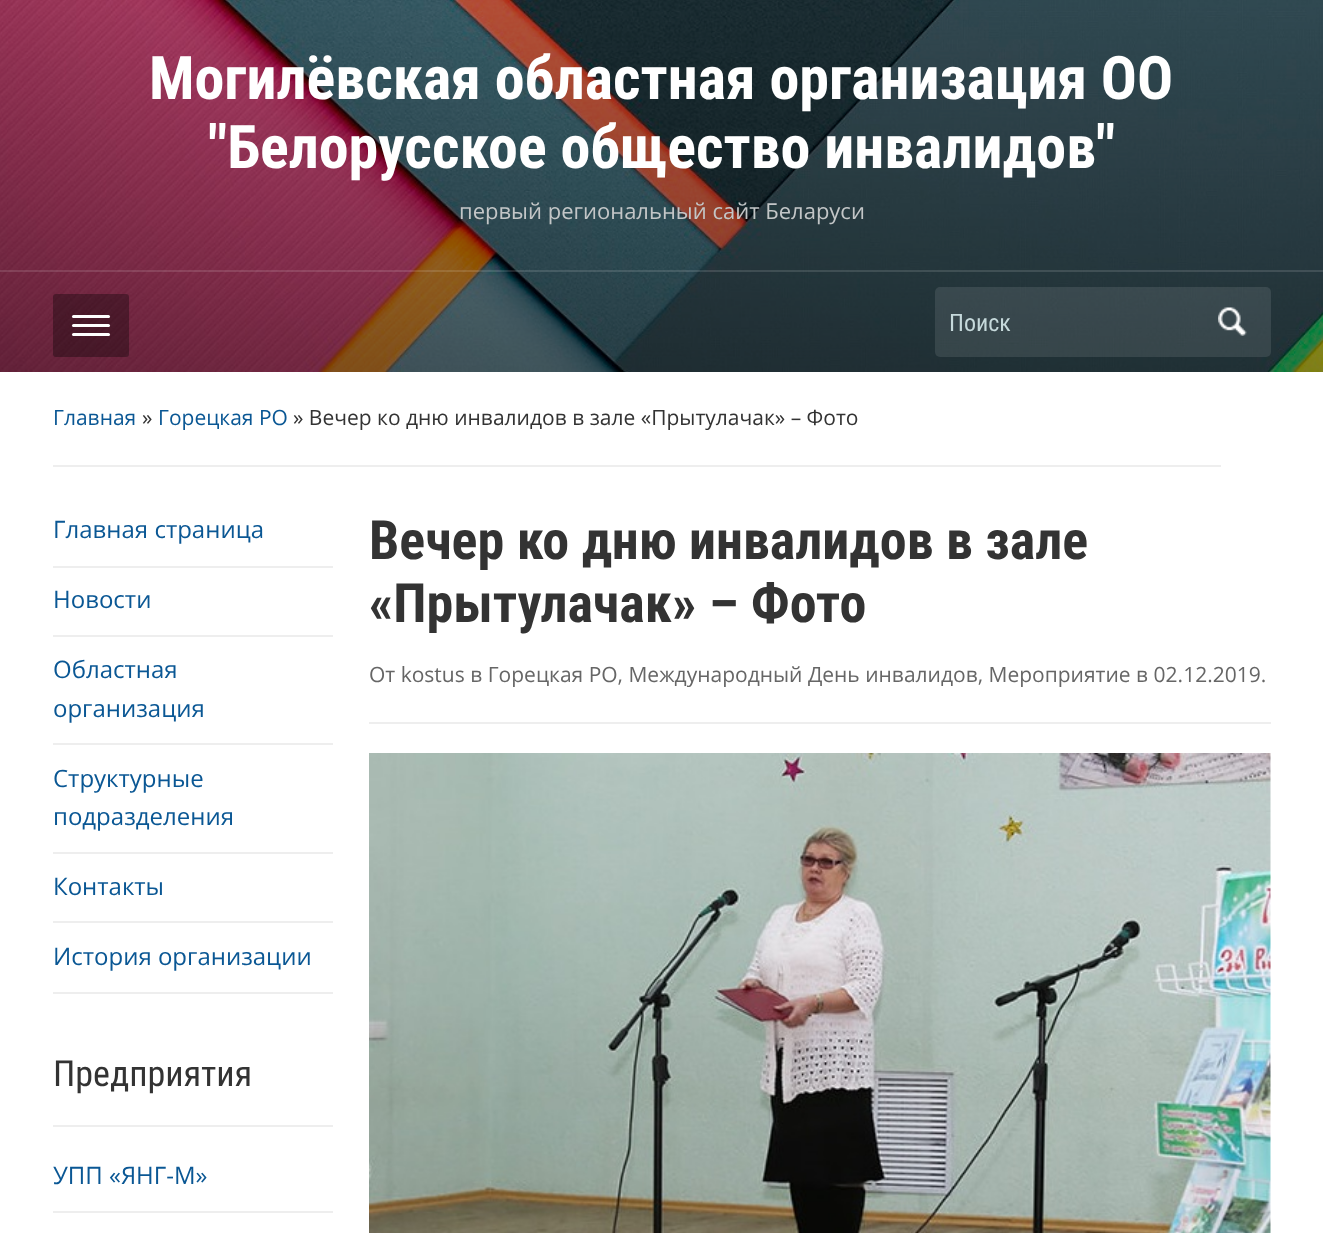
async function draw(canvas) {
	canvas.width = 1323;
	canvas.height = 1233;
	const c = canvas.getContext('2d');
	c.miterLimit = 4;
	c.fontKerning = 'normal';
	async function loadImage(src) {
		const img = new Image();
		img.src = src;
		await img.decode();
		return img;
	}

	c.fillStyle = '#fff';
	c.fillRect(0, 0, 1323, 1233);
	c.drawImage(await loadImage('img1.png'), 0, 0, 1323, 372);
	c.font = 'bold 60px Roboto Condensed';
	c.fillText('Могилёвская областная организация ОО', 149, 99);
	c.fillText('"Белорусское общество инвалидов"', 208, 168);
	c.font = '22px Open Sans';
	c.fillStyle = '#c3c6c7';
	c.fillText('первый региональный сайт Беларуси', 459, 219);
	c.fillStyle = '#ffffff21';
	c.fillRect(0, 270, 1323, 2);
	c.fillStyle = '#00000054';
	c.beginPath();
	c.roundRect(53, 294, 76, 63, 3);
	c.fill();
	c.fillStyle = '#fff';
	c.beginPath();
	c.roundRect(72, 315, 38, 3, 1.5);
	c.fill();
	c.beginPath();
	c.roundRect(72, 324, 38, 3, 1.5);
	c.fill();
	c.beginPath();
	c.roundRect(72, 333, 38, 3, 1.5);
	c.fill();
	c.fillStyle = '#ffffff1a';
	c.beginPath();
	c.roundRect(935, 287, 336, 70, 5);
	c.fill();
	c.font = '24px Roboto Condensed';
	c.fillStyle = '#c6d9db';
	c.fillText('Поиск', 949, 331);
	c.drawImage(await loadImage('img2.png'), 1218, 307, 29, 29);
	c.fillStyle = '#eee';
	c.fillRect(53, 465, 1168, 2);
	c.font = '21px Open Sans';
	c.fillStyle = '#0a5794';
	c.fillText('Главная', 53, 425);
	c.fillStyle = '#333';
	c.fillText('»', 142, 425);
	c.fillStyle = '#0a5794';
	c.fillText('Горецкая РО', 158, 425);
	c.fillStyle = '#333';
	c.fillText('» Вечер ко дню инвалидов в зале «Прытулачак» – Фото', 293, 425);
	c.fillStyle = '#eee';
	c.fillRect(53, 566, 280, 2);
	c.font = '24px Open Sans';
	c.fillStyle = '#0a5794';
	c.fillText('Главная страница', 53, 538);
	c.fillStyle = '#eee';
	c.fillRect(53, 635, 280, 2);
	c.fillStyle = '#0a5794';
	c.fillText('Новости', 53, 608);
	c.fillStyle = '#eee';
	c.fillRect(53, 743, 280, 2);
	c.fillStyle = '#0a5794';
	c.fillText('Областная', 53, 678);
	c.fillText('организация', 53, 717);
	c.fillStyle = '#eee';
	c.fillRect(53, 852, 280, 2);
	c.fillStyle = '#0a5794';
	c.fillText('Структурные', 53, 787);
	c.fillText('подразделения', 53, 825);
	c.fillStyle = '#eee';
	c.fillRect(53, 921, 280, 2);
	c.fillStyle = '#0a5794';
	c.fillText('Контакты', 53, 895);
	c.fillStyle = '#eee';
	c.fillRect(53, 992, 280, 2);
	c.fillStyle = '#0a5794';
	c.fillText('История организации', 53, 965);
	c.fillStyle = '#eee';
	c.fillRect(53, 1125, 280, 2);
	c.font = '36px Roboto Condensed';
	c.fillStyle = '#333';
	c.fillText('Предприятия', 53, 1086);
	c.fillStyle = '#eee';
	c.fillRect(53, 1211, 280, 2);
	c.font = '24px Open Sans';
	c.fillStyle = '#0a5794';
	c.fillText('УПП «ЯНГ-М»', 53, 1184);
	c.font = 'bold 54px Roboto Condensed';
	c.fillStyle = '#333';
	c.fillText('Вечер ко дню инвалидов в зале', 369, 559);
	c.fillText('«Прытулачак» – Фото', 369, 622);
	c.fillStyle = '#eee';
	c.fillRect(369, 722, 902, 2);
	c.font = '21px Open Sans';
	c.fillStyle = '#666';
	c.fillText('От kostus в Горецкая РО, Международный День инвалидов, Мероприятие в 02.12.2019.', 369, 682);
	c.drawImage(await loadImage('img3.png'), 369, 753, 902, 480);
}

draw(document.querySelector('canvas'));
